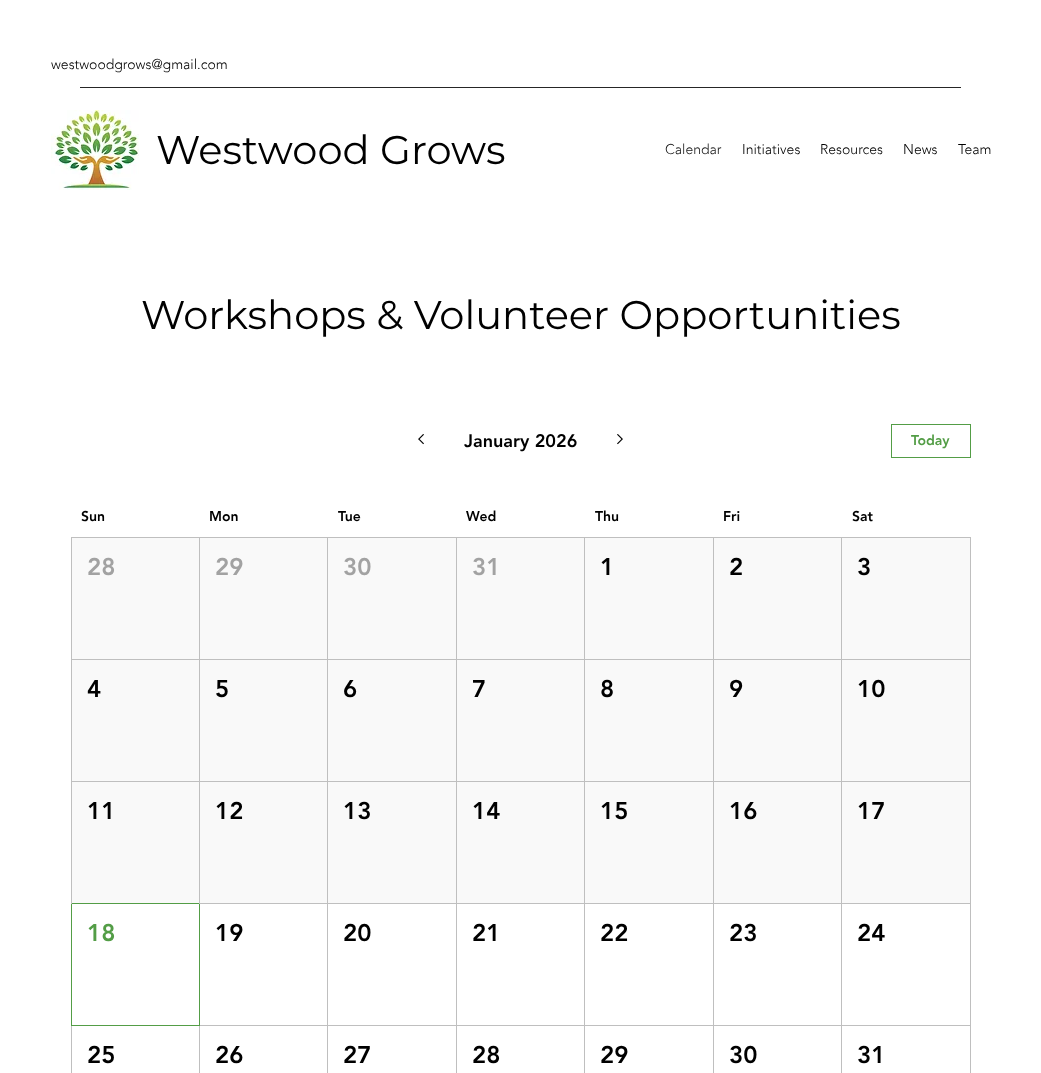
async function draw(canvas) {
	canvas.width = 1041;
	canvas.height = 1073;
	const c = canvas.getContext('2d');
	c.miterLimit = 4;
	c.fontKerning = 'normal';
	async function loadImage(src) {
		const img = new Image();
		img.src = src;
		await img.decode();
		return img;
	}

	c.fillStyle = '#fff';
	c.fillRect(0, 0, 1041, 1073);
	for (const [x, y, w, h, color] of [
		[842, 782, 128, 121, '#f9f9f9'],
		[714, 782, 127, 121, '#f9f9f9'],
		[585, 782, 128, 121, '#f9f9f9'],
		[457, 782, 127, 121, '#f9f9f9'],
		[328, 782, 128, 121, '#f9f9f9'],
		[200, 782, 127, 121, '#f9f9f9'],
		[72, 782, 127, 121, '#f9f9f9'],
		[842, 660, 128, 121, '#f9f9f9'],
		[714, 660, 127, 121, '#f9f9f9'],
		[585, 660, 128, 121, '#f9f9f9'],
		[457, 660, 127, 121, '#f9f9f9'],
		[328, 660, 128, 121, '#f9f9f9'],
		[200, 660, 127, 121, '#f9f9f9'],
		[72, 660, 127, 121, '#f9f9f9'],
		[842, 538, 128, 121, '#f9f9f9'],
		[714, 538, 127, 121, '#f9f9f9'],
		[585, 538, 128, 121, '#f9f9f9'],
		[457, 538, 127, 121, '#f9f9f9'],
		[328, 538, 128, 121, '#f9f9f9'],
		[200, 538, 127, 121, '#f9f9f9'],
		[72, 538, 127, 121, '#f9f9f9'],
	]) {
		c.fillStyle = color;
		c.fillRect(x, y, w, h);
	}
	c.font = '300 14px "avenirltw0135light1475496"';
	c.fillStyle = '#000';
	c.fillText('westwoodgrows@gmail.com', 51, 69);
	c.fillStyle = '#262626';
	c.fillRect(80, 87, 881, 1);
	c.drawImage(await loadImage('img1.png'), 51, 110, 88, 80);
	c.font = '40px Montserrat';
	c.fillStyle = '#000';
	c.fillText('Westwood Grows', 156, 164);
	c.font = '300 14px "avenirltw0135light1475496"';
	c.fillStyle = '#161616';
	c.fillText('Calendar', 665, 154);
	c.fillStyle = '#000';
	for (const [text, x, y] of [
		['Initiatives', 742, 154],
		['Resources', 820, 154],
		['News', 903, 154],
		['Team', 958, 154],
	]) {
		c.fillText(text, x, y);
	}
	c.font = '40px Montserrat';
	c.fillText('Workshops & Volunteer Opportunities', 141, 329);
	c.drawImage(await loadImage('img2.png'), 418, 434, 6, 11);
	c.font = '900 18px "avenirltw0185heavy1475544"';
	c.fillText('January 2026', 464, 447);
	c.drawImage(await loadImage('img3.png'), 617, 434, 6, 11);
	c.strokeStyle = '#539d46';
	c.strokeRect(891.5, 424.5, 79, 33);
	c.font = '900 14px "avenirltw0185heavy1475544"';
	c.fillStyle = '#539d46';
	c.fillText('Today', 911, 445);
	c.fillStyle = '#000';
	for (const [text, x, y] of [
		['Sun', 81, 521],
		['Mon', 209, 521],
		['Tue', 338, 521],
		['Wed', 466, 521],
		['Thu', 595, 521],
		['Fri', 723, 521],
		['Sat', 852, 521],
	]) {
		c.fillText(text, x, y);
	}
	c.fillStyle = '#bfbfbf';
	c.fillRect(71, 537, 899, 1);
	c.fillRect(71, 537, 1, 122);
	c.font = '900 24px "avenirltw0185heavy1475544"';
	c.fillStyle = '#a2a2a2';
	for (const [text, x, y] of [
		['28', 87, 575],
		['29', 215, 575],
		['30', 343, 575],
		['31', 472, 575],
	]) {
		c.fillText(text, x, y);
	}
	c.fillStyle = '#000';
	for (const [text, x, y] of [
		['1', 600, 575],
		['2', 729, 575],
		['3', 857, 575],
	]) {
		c.fillText(text, x, y);
	}
	c.fillStyle = '#bfbfbf';
	c.fillRect(71, 659, 899, 1);
	c.fillRect(71, 659, 1, 122);
	c.fillStyle = '#000';
	for (const [text, x, y] of [
		['4', 87, 697],
		['5', 215, 697],
		['6', 343, 697],
		['7', 472, 697],
		['8', 600, 697],
		['9', 729, 697],
		['10', 857, 697],
	]) {
		c.fillText(text, x, y);
	}
	for (const [x, y, w, h, color] of [
		[71, 781, 899, 1, '#bfbfbf'],
		[71, 903, 129, 1, '#539d46'],
		[199, 1025, 1, 48, '#bfbfbf'],
		[199, 903, 1, 123, '#539d46'],
		[71, 1025, 1, 48, '#bfbfbf'],
		[71, 1025, 129, 1, '#539d46'],
		[71, 903, 1, 123, '#539d46'],
		[71, 781, 1, 123, '#bfbfbf'],
	]) {
		c.fillStyle = color;
		c.fillRect(x, y, w, h);
	}
	c.fillStyle = '#000';
	c.fillText('11', 87, 819);
	c.fillStyle = '#bfbfbf';
	c.fillRect(199, 537, 1, 367);
	c.fillStyle = '#000';
	for (const [text, x, y] of [
		['12', 215, 819],
		['13', 343, 819],
		['14', 472, 819],
		['15', 600, 819],
		['16', 729, 819],
		['17', 857, 819],
	]) {
		c.fillText(text, x, y);
	}
	for (const [x, y, w, h, color] of [
		[200, 903, 771, 1, '#bfbfbf'],
		[200, 1025, 771, 1, '#bfbfbf'],
		[970, 1025, 1, 48, '#bfbfbf'],
		[970, 537, 1, 489, '#bfbfbf'],
	]) {
		c.fillStyle = color;
		c.fillRect(x, y, w, h);
	}
	c.fillStyle = '#539d46';
	c.fillText('18', 87, 941);
	c.fillStyle = '#000';
	for (const [text, x, y] of [
		['19', 215, 941],
		['20', 343, 941],
		['21', 472, 941],
		['22', 600, 941],
		['23', 729, 941],
		['24', 857, 941],
		['25', 87, 1063],
		['26', 215, 1063],
	]) {
		c.fillText(text, x, y);
	}
	c.fillStyle = '#bfbfbf';
	c.fillRect(327, 537, 1, 536);
	c.fillStyle = '#000';
	c.fillText('27', 343, 1063);
	c.fillStyle = '#bfbfbf';
	c.fillRect(456, 537, 1, 536);
	c.fillStyle = '#000';
	c.fillText('28', 472, 1063);
	c.fillStyle = '#bfbfbf';
	c.fillRect(584, 537, 1, 536);
	c.fillStyle = '#000';
	c.fillText('29', 600, 1063);
	c.fillStyle = '#bfbfbf';
	c.fillRect(713, 537, 1, 536);
	c.fillStyle = '#000';
	c.fillText('30', 729, 1063);
	c.fillStyle = '#bfbfbf';
	c.fillRect(841, 537, 1, 536);
	c.fillStyle = '#000';
	c.fillText('31', 857, 1063);
}

draw(document.querySelector('canvas'));
